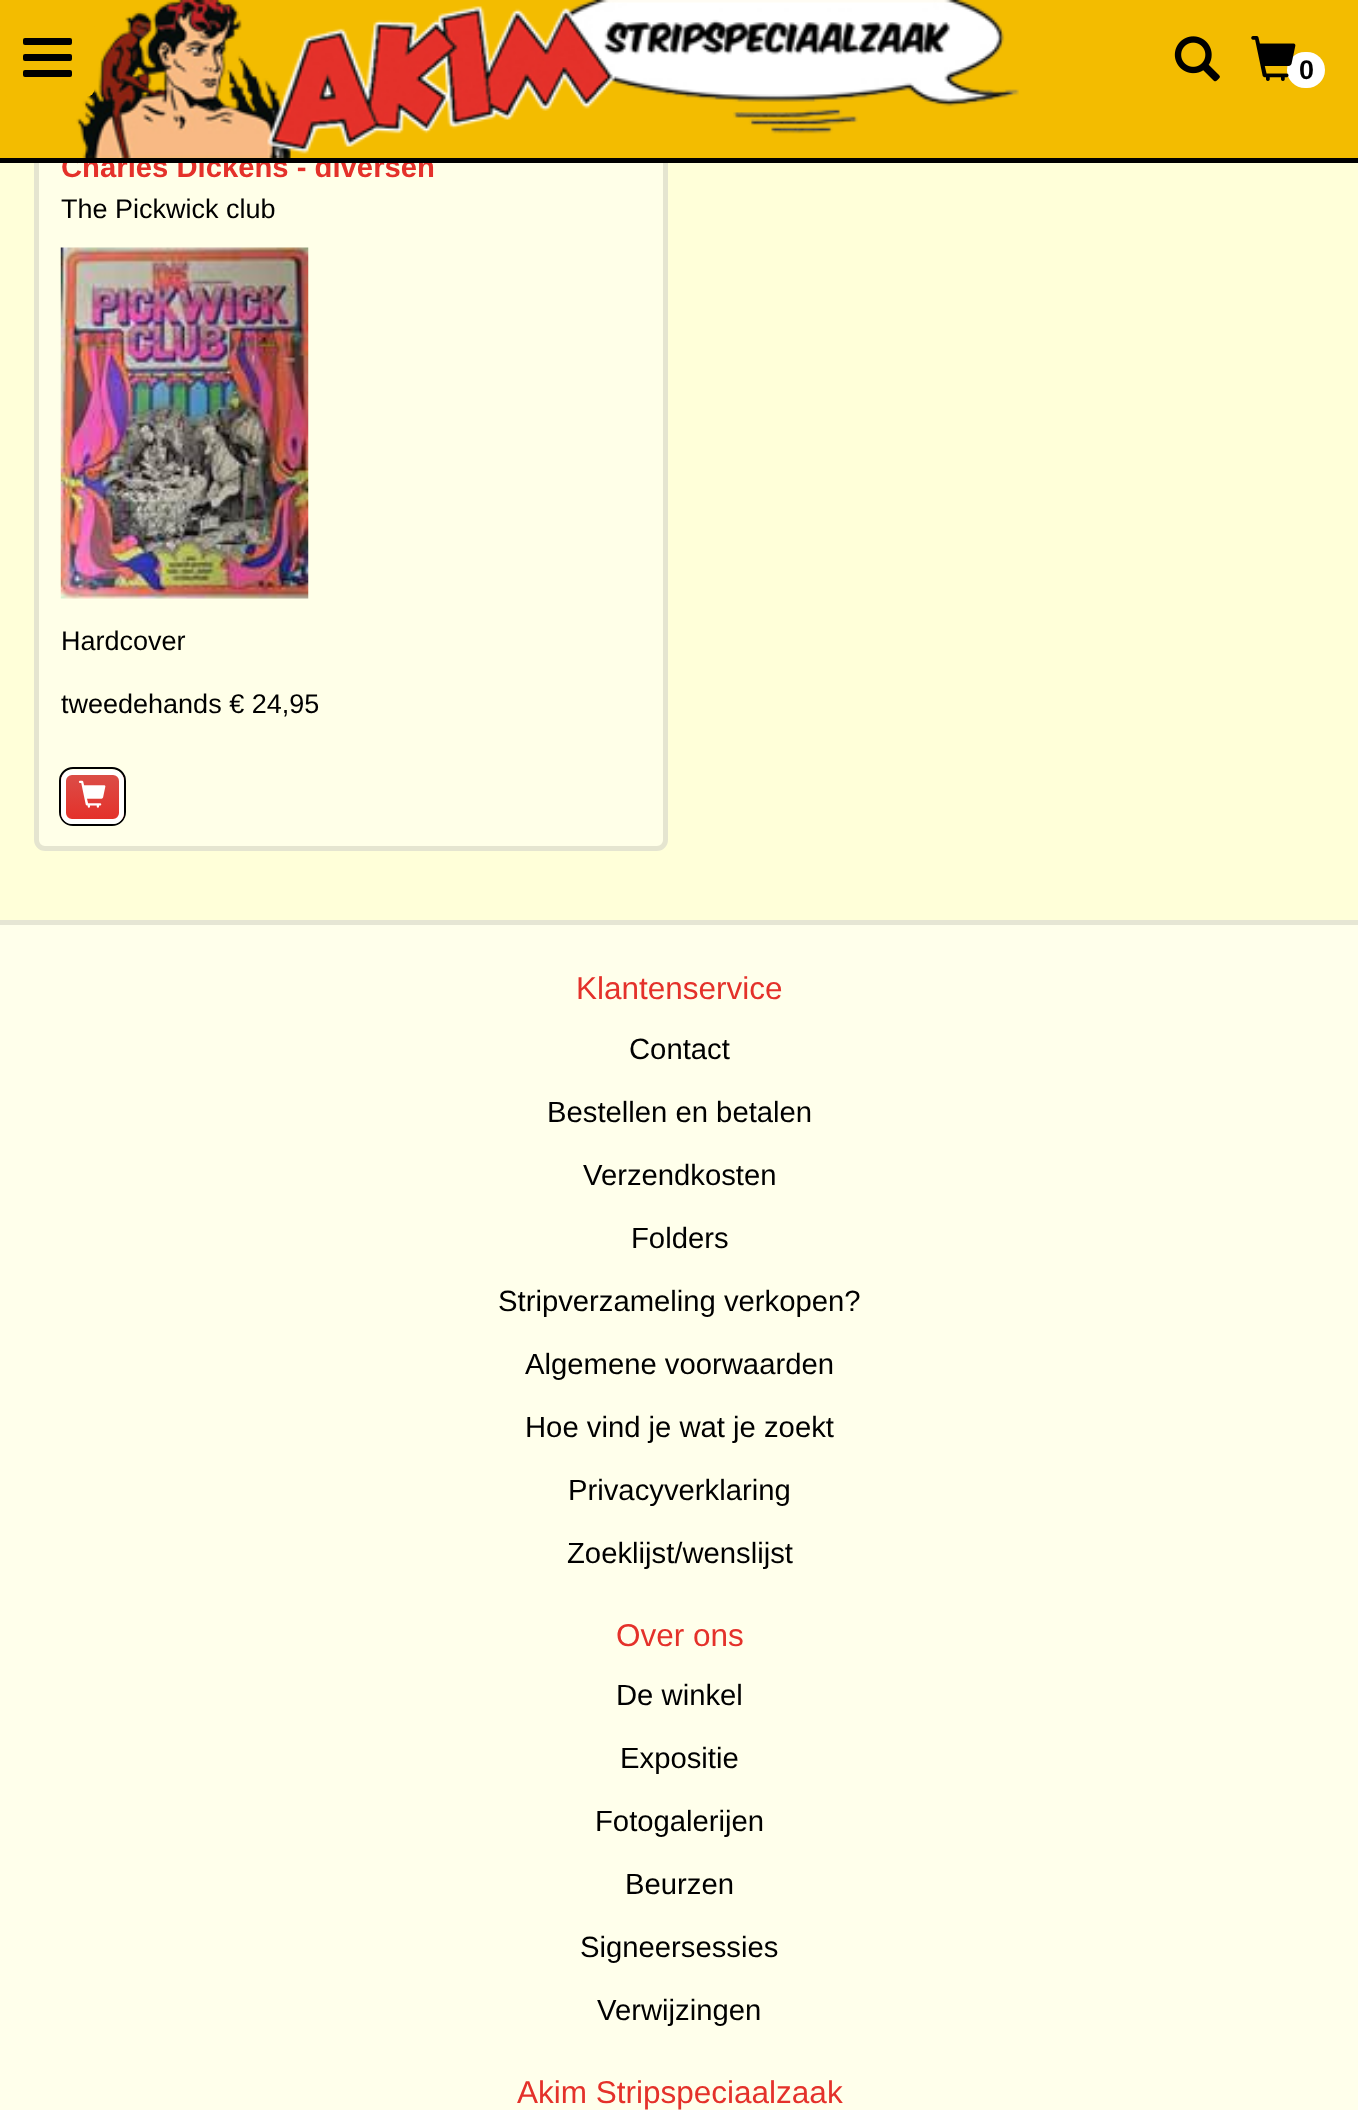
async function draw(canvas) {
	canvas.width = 1358;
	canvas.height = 2110;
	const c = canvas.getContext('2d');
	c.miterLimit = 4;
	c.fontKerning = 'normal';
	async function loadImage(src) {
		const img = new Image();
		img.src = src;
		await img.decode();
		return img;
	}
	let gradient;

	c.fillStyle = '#ffffd9';
	c.fillRect(0, 0, 1358, 2110);
	c.fillStyle = '#ffffe8';
	c.beginPath();
	c.roundRect(34, 126, 634, 725, 11);
	c.fill();
	c.beginPath();
	c.roundRect(36.5, 128.5, 629, 720, 8.5);
	c.strokeStyle = '#0000001a';
	c.lineWidth = 5;
	c.stroke();
	c.font = 'bold 29.25px Liberation Sans';
	c.fillStyle = '#e4312a';
	c.fillText('Charles Dickens - diversen', 61, 177);
	c.fillStyle = '#f3bc00';
	c.fillRect(0, 0, 1358, 158);
	c.fillStyle = '#000';
	c.fillRect(0, 158, 1358, 5);
	c.drawImage(await loadImage('img1.png'), 76, 0, 943, 158);
	c.fillStyle = '#f3bc00';
	c.beginPath();
	c.roundRect(0, 18, 95, 79, 9);
	c.fill();
	c.fillStyle = '#000';
	c.beginPath();
	c.roundRect(23, 38, 49, 7, 2);
	c.fill();
	c.beginPath();
	c.roundRect(23, 54, 49, 7, 2);
	c.fill();
	c.beginPath();
	c.roundRect(23, 70, 49, 7, 2);
	c.fill();
	c.drawImage(await loadImage('img2.png'), 1174, 36, 46, 46);
	c.fillStyle = '#fff';
	c.beginPath();
	c.roundRect(1287, 52, 38, 36, 18);
	c.fill();
	c.drawImage(await loadImage('img3.png'), 1251, 36, 45, 45);
	c.font = 'bold 27px Liberation Sans';
	c.fillStyle = '#000';
	c.fillText('0', 1299, 79);
	c.font = '27px Liberation Sans';
	c.fillText('The Pickwick club', 61, 218);
	c.drawImage(await loadImage('img4.png'), 60, 247, 249, 352);
	c.fillText('Hardcover', 61, 650);
	c.fillText('tweedehands € 24,95', 61, 713);
	c.beginPath();
	c.roundRect(60, 768, 65, 57, 13);
	c.strokeStyle = '#000';
	c.lineWidth = 2;
	c.stroke();
	c.save();
	c.beginPath();
	c.roundRect(61, 770, 63, 54, 11);
	c.clip();
	gradient = c.createLinearGradient(92, 774, 92, 819);
	gradient.addColorStop(0.01, '#e25651');
	gradient.addColorStop(0.01, '#db4d48');
	gradient.addColorStop(1, '#e4312a');
	gradient.addColorStop(1, '#e25651');
	gradient.addColorStop(1, '#e4312a');
	c.fillStyle = gradient;
	c.fillRect(61, 774, 63, 45);
	c.restore();
	c.beginPath();
	c.roundRect(63.5, 772.5, 58, 49, 8.5);
	c.strokeStyle = '#fff';
	c.lineWidth = 5;
	c.stroke();
	c.drawImage(await loadImage('img5.png'), 78, 780, 28, 28);
	c.fillStyle = '#ffffeb';
	c.fillRect(0, 925, 1358, 1185);
	c.fillStyle = '#e6e6d4';
	c.fillRect(0, 920, 1358, 5);
	c.font = '31.5px Liberation Sans';
	c.fillStyle = '#e4312a';
	c.fillText('Klantenservice', 576, 999);
	c.font = '29.25px Liberation Sans';
	c.fillStyle = '#000';
	for (const [text, x, y] of [
		['Contact', 629, 1059],
		['Bestellen en betalen', 547, 1122],
		['Verzendkosten', 583, 1185],
		['Folders', 631, 1248],
		['Stripverzameling verkopen?', 498, 1311],
		['Algemene voorwaarden', 525, 1374],
		['Hoe vind je wat je zoekt', 525, 1437],
		['Privacyverklaring', 568, 1500],
		['Zoeklijst/wenslijst', 567, 1563],
	]) {
		c.fillText(text, x, y);
	}
	c.font = '31.5px Liberation Sans';
	c.fillStyle = '#e4312a';
	c.fillText('Over ons', 616, 1646);
	c.font = '29.25px Liberation Sans';
	c.fillStyle = '#000';
	for (const [text, x, y] of [
		['De winkel', 616, 1705],
		['Expositie', 620, 1768],
		['Fotogalerijen', 595, 1831],
		['Beurzen', 625, 1894],
		['Signeersessies', 580, 1957],
		['Verwijzingen', 597, 2020],
	]) {
		c.fillText(text, x, y);
	}
	c.font = '31.5px Liberation Sans';
	c.fillStyle = '#e4312a';
	c.fillText('Akim Stripspeciaalzaak', 517, 2103);
}

draw(document.querySelector('canvas'));
